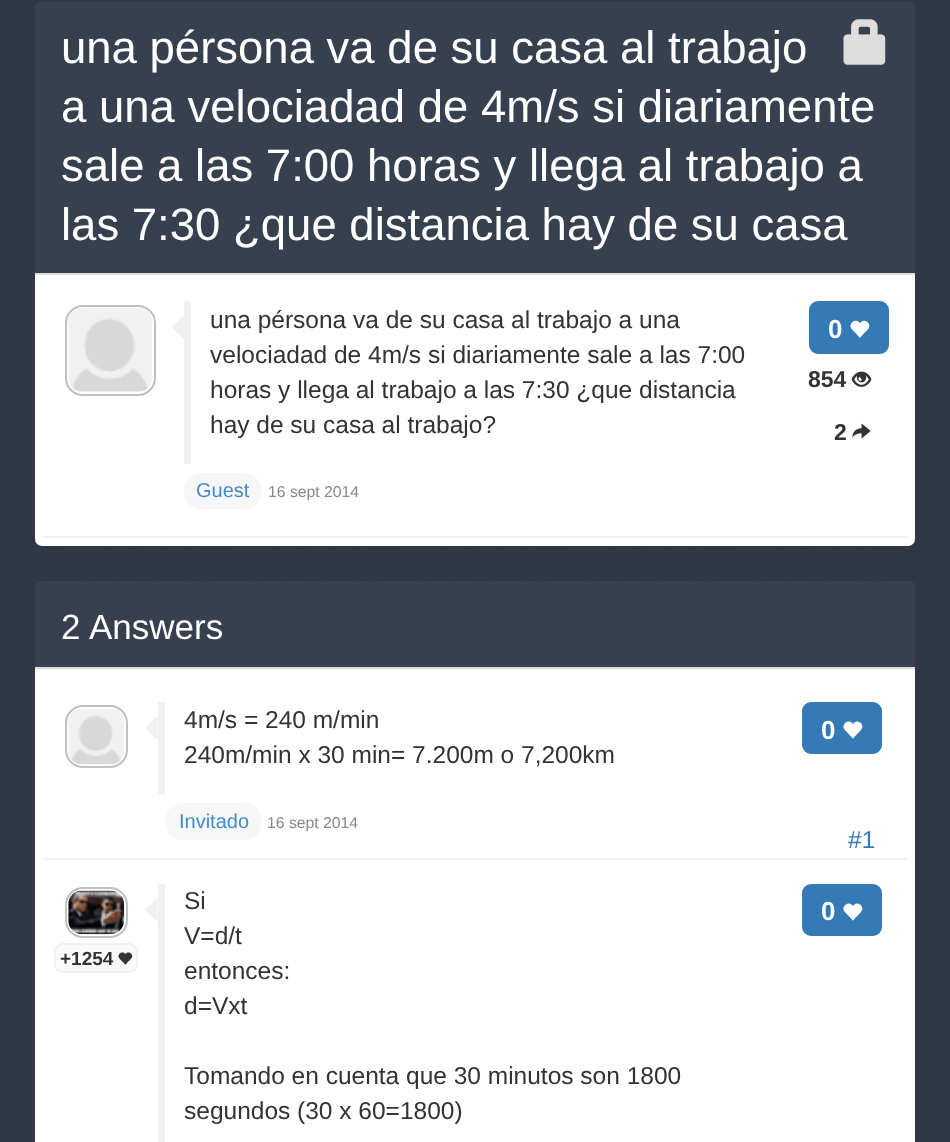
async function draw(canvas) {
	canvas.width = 950;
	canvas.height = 1142;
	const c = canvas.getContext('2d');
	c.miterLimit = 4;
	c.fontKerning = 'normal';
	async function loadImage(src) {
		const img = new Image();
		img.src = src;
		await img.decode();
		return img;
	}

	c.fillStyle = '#fff';
	c.fillRect(0, 0, 950, 1142);
	c.drawImage(await loadImage('img1.png'), 0, 0, 950, 1142);
	c.beginPath();
	c.roundRect(35, 2, 880, 544, 7);
	c.fill();
	c.fillStyle = '#36404f';
	c.beginPath();
	c.roundRect(35, 2, 880, 273, [5, 5, 0, 0]);
	c.fill();
	c.fillStyle = '#ddd';
	c.fillRect(35, 273, 880, 2);
	c.font = '45.5px Liberation Sans';
	c.fillStyle = '#fff';
	c.fillText('una pérsona va de su casa al trabajo', 61, 63);
	c.drawImage(await loadImage('img2.png'), 843, 19, 43, 46);
	for (const [text, x, y] of [
		['a una velociadad de 4m/s si diariamente', 61, 122],
		['sale a las 7:00 horas y llega al trabajo a', 61, 181],
		['las 7:30 ¿que distancia hay de su casa', 61, 240],
	]) {
		c.fillText(text, x, y);
	}
	c.fillStyle = '#f0f0f0';
	c.fillRect(44, 536, 863, 2);
	c.beginPath();
	c.roundRect(66, 306, 89, 89, 17);
	c.strokeStyle = '#c0c0c0';
	c.lineWidth = 2;
	c.stroke();
	c.drawImage(await loadImage('img3.png'), 68, 308, 84, 84);
	c.fillRect(184, 301, 7, 163);
	c.beginPath();
	c.moveTo(184, 315);
	c.lineTo(184, 339.5);
	c.lineTo(171.5, 327);
	c.closePath();
	c.fill();
	c.font = '24.5px Liberation Sans';
	c.fillStyle = '#333';
	for (const [text, x, y] of [
		['una pérsona va de su casa al trabajo a una', 210, 328],
		['velociadad de 4m/s si diariamente sale a las 7:00', 210, 363],
		['horas y llega al trabajo a las 7:30 ¿que distancia', 210, 398],
		['hay de su casa al trabajo?', 210, 433],
	]) {
		c.fillText(text, x, y);
	}
	c.fillStyle = '#337ab7';
	c.beginPath();
	c.roundRect(810, 302, 78, 51, 8);
	c.fill();
	c.strokeStyle = '#337ab7';
	c.stroke();
	c.font = 'bold 26px Liberation Sans';
	c.fillStyle = '#fff';
	c.fillText('0', 828, 338);
	c.drawImage(await loadImage('img4.png'), 850, 320, 20, 18);
	c.font = 'bold 23px Liberation Sans';
	c.fillStyle = '#333';
	c.fillText('854', 808, 387);
	c.drawImage(await loadImage('img5.png'), 851, 371, 21, 16);
	c.fillText('2', 834, 440);
	c.drawImage(await loadImage('img6.png'), 852, 423, 19, 16);
	c.fillStyle = '#f7f7f7';
	c.beginPath();
	c.roundRect(184, 473, 77, 36, 16);
	c.fill();
	c.font = '20px Liberation Sans';
	c.fillStyle = '#428bca';
	c.fillText('Guest', 196, 497);
	c.font = '15.75px Liberation Sans';
	c.fillStyle = '#888';
	c.fillText('16 sept 2014', 268, 497);
	c.fillStyle = '#fff';
	c.beginPath();
	c.roundRect(35, 581, 880, 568, 7);
	c.fill();
	c.fillStyle = '#36404f';
	c.beginPath();
	c.roundRect(35, 581, 880, 88, [5, 5, 0, 0]);
	c.fill();
	c.fillStyle = '#ddd';
	c.fillRect(35, 667, 880, 2);
	c.font = '35px Liberation Sans';
	c.fillStyle = '#fff';
	c.fillText('2', 61, 639);
	c.fillText('Answers', 89, 639);
	c.fillStyle = '#f0f0f0';
	c.fillRect(44, 858, 863, 2);
	c.beginPath();
	c.roundRect(66, 706, 61, 61, 17);
	c.strokeStyle = '#c0c0c0';
	c.stroke();
	c.drawImage(await loadImage('img7.png'), 68, 709, 56, 56);
	c.fillRect(158, 702, 7, 93);
	c.beginPath();
	c.moveTo(157.5, 716);
	c.lineTo(157.5, 740);
	c.lineTo(145, 728);
	c.closePath();
	c.fill();
	c.font = '24.5px Liberation Sans';
	c.fillStyle = '#333';
	c.fillText('4m/s = 240 m/min', 184, 728);
	c.fillText('240m/min x 30 min= 7.200m o 7,200km', 184, 763);
	c.fillStyle = '#337ab7';
	c.beginPath();
	c.roundRect(803, 703, 78, 50, 8);
	c.fill();
	c.strokeStyle = '#337ab7';
	c.stroke();
	c.font = 'bold 26px Liberation Sans';
	c.fillStyle = '#fff';
	c.fillText('0', 821, 739);
	c.drawImage(await loadImage('img8.png'), 843, 721, 20, 18);
	c.fillStyle = '#f7f7f7';
	c.beginPath();
	c.roundRect(166, 803, 95, 37, 16);
	c.fill();
	c.font = '20px Liberation Sans';
	c.fillStyle = '#428bca';
	c.fillText('Invitado', 179, 828);
	c.font = '15.75px Liberation Sans';
	c.fillStyle = '#888';
	c.fillText('16 sept 2014', 267, 828);
	c.font = '24.5px Liberation Sans';
	c.fillStyle = '#337ab7';
	c.fillText('#1', 848, 848);
	c.fillStyle = '#f0f0f0';
	c.fillRect(158, 884, 7, 258);
	c.beginPath();
	c.moveTo(157.5, 898);
	c.lineTo(157.5, 922);
	c.lineTo(145, 910);
	c.closePath();
	c.fill();
	c.fillStyle = '#333';
	for (const [text, x, y] of [
		['Si', 184, 909],
		['V=d/t', 184, 944],
		['entonces:', 184, 979],
		['d=Vxt', 184, 1014],
		['Tomando en cuenta que 30 minutos son 1800', 184, 1084],
		['segundos (30 x 60=1800)', 184, 1119],
	]) {
		c.fillText(text, x, y);
	}
	c.fillStyle = '#337ab7';
	c.beginPath();
	c.roundRect(803, 885, 78, 50, 8);
	c.fill();
	c.stroke();
	c.font = 'bold 26px Liberation Sans';
	c.fillStyle = '#fff';
	c.fillText('0', 821, 920);
	c.drawImage(await loadImage('img8.png'), 843, 903, 20, 18);
	c.beginPath();
	c.roundRect(66, 888, 61, 49, 17);
	c.strokeStyle = '#c0c0c0';
	c.stroke();
	c.drawImage(await loadImage('img9.png'), 68, 890, 57, 45);
	c.fillStyle = '#fafafa';
	c.beginPath();
	c.roundRect(55, 944, 82, 28, 8);
	c.fill();
	c.strokeStyle = '#f0f0f0';
	c.stroke();
	c.font = 'bold 19px Liberation Sans';
	c.fillStyle = '#333';
	c.fillText('+1254', 60, 965);
	c.drawImage(await loadImage('img10.png'), 118, 952, 15, 13);
}

draw(document.querySelector('canvas'));
